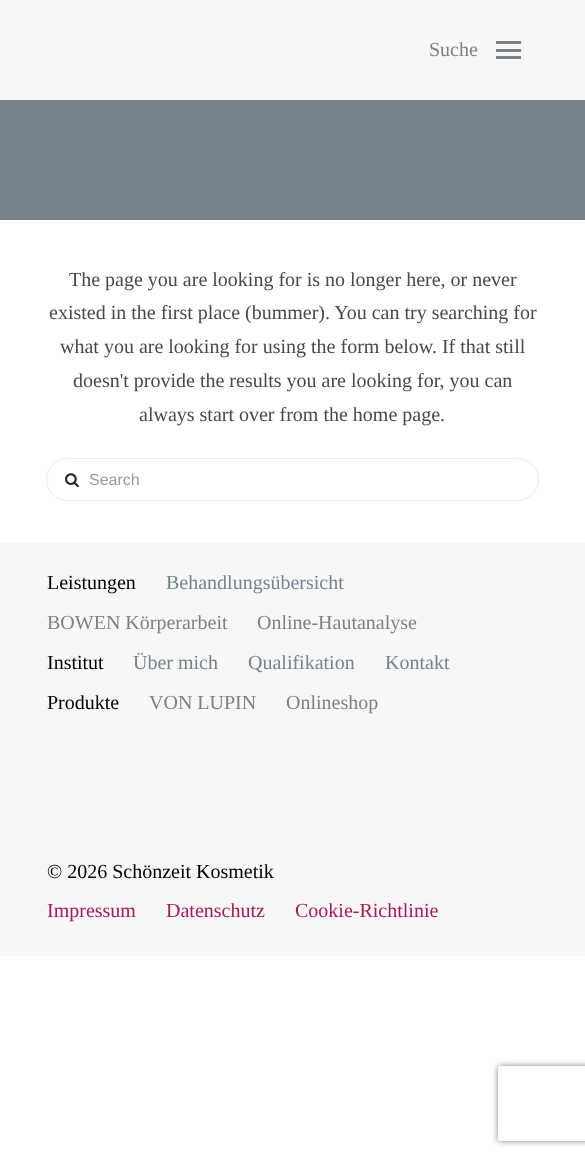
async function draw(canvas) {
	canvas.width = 585;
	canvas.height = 1158;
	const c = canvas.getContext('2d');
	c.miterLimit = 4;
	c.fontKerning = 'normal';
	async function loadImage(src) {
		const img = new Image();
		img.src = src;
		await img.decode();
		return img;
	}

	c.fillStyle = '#fff';
	c.fillRect(0, 0, 585, 1158);
	c.fillStyle = '#f7f7f7';
	c.fillRect(0, 0, 585, 100);
	c.font = '20px Liberation Serif';
	c.fillStyle = '#77838b';
	c.fillText('Suche', 429, 56);
	for (const [x, y, w, h, color] of [
		[496, 41, 25, 3, '#77838b'],
		[496, 49, 25, 3, '#77838b'],
		[496, 56, 25, 3, '#77838b'],
		[0, 100, 585, 120, '#77838b'],
	]) {
		c.fillStyle = color;
		c.fillRect(x, y, w, h);
	}
	c.fillStyle = '#4a494a';
	for (const [text, x, y] of [
		['The page you are looking for is no longer here, or never', 69, 286],
		['existed in the first place (bummer). You can try searching for', 49, 319],
		['what you are looking for using the form below. If that still', 60, 353],
		['doesn\'t provide the results you are looking for, you can', 73, 387],
		['always start over from the home page.', 139, 421],
	]) {
		c.fillText(text, x, y);
	}
	c.beginPath();
	c.roundRect(46.5, 458.5, 492, 42, 21);
	c.strokeStyle = '#ececec';
	c.stroke();
	c.drawImage(await loadImage('img1.png'), 65, 473, 14, 15);
	c.font = '16px Liberation Sans';
	c.fillStyle = '#999';
	c.fillText('Search', 89, 485);
	c.fillStyle = '#f7f7f7';
	c.fillRect(0, 543, 585, 413);
	c.font = '20px Liberation Serif';
	c.fillStyle = '#000';
	c.fillText('Leistungen', 47, 589);
	c.fillStyle = '#77838b';
	for (const [text, x, y] of [
		['Behandlungsübersicht', 166, 589],
		['BOWEN Körperarbeit', 47, 629],
		['Online-Hautanalyse', 257, 629],
	]) {
		c.fillText(text, x, y);
	}
	c.fillStyle = '#000';
	c.fillText('Institut', 47, 669);
	c.fillStyle = '#77838b';
	for (const [text, x, y] of [
		['Über mich', 133, 669],
		['Qualifikation', 248, 669],
		['Kontakt', 385, 669],
	]) {
		c.fillText(text, x, y);
	}
	c.fillStyle = '#000';
	c.fillText('Produkte', 47, 709);
	c.fillStyle = '#77838b';
	c.fillText('VON LUPIN', 149, 709);
	c.fillText('Onlineshop', 286, 709);
	c.fillStyle = '#000';
	c.fillText('© 2026 Schönzeit Kosmetik', 47, 878);
	c.fillStyle = '#a71a55';
	for (const [text, x, y] of [
		['Impressum', 47, 917],
		['Datenschutz', 166, 917],
		['Cookie-Richtlinie', 295, 917],
	]) {
		c.fillText(text, x, y);
	}
	c.save();
	c.beginPath();
	c.moveTo(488, 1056);
	c.lineTo(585, 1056);
	c.lineTo(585, 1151);
	c.lineTo(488, 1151);
	c.closePath();
	c.moveTo(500.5, 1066);
	c.lineTo(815.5, 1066);
	c.bezierCurveTo(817, 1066, 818, 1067, 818, 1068.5);
	c.lineTo(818, 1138.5);
	c.bezierCurveTo(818, 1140, 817, 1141, 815.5, 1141);
	c.lineTo(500.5, 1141);
	c.bezierCurveTo(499, 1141, 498, 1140, 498, 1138.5);
	c.lineTo(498, 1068.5);
	c.bezierCurveTo(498, 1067, 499, 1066, 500.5, 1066);
	c.closePath();
	c.clip('evenodd');
	c.fillStyle = '#808080';
	c.filter = 'blur(3px)';
	c.beginPath();
	c.roundRect(498, 1066, 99, 75, 2.5);
	c.fill();
	c.filter = 'none';
	c.restore();
}

draw(document.querySelector('canvas'));
